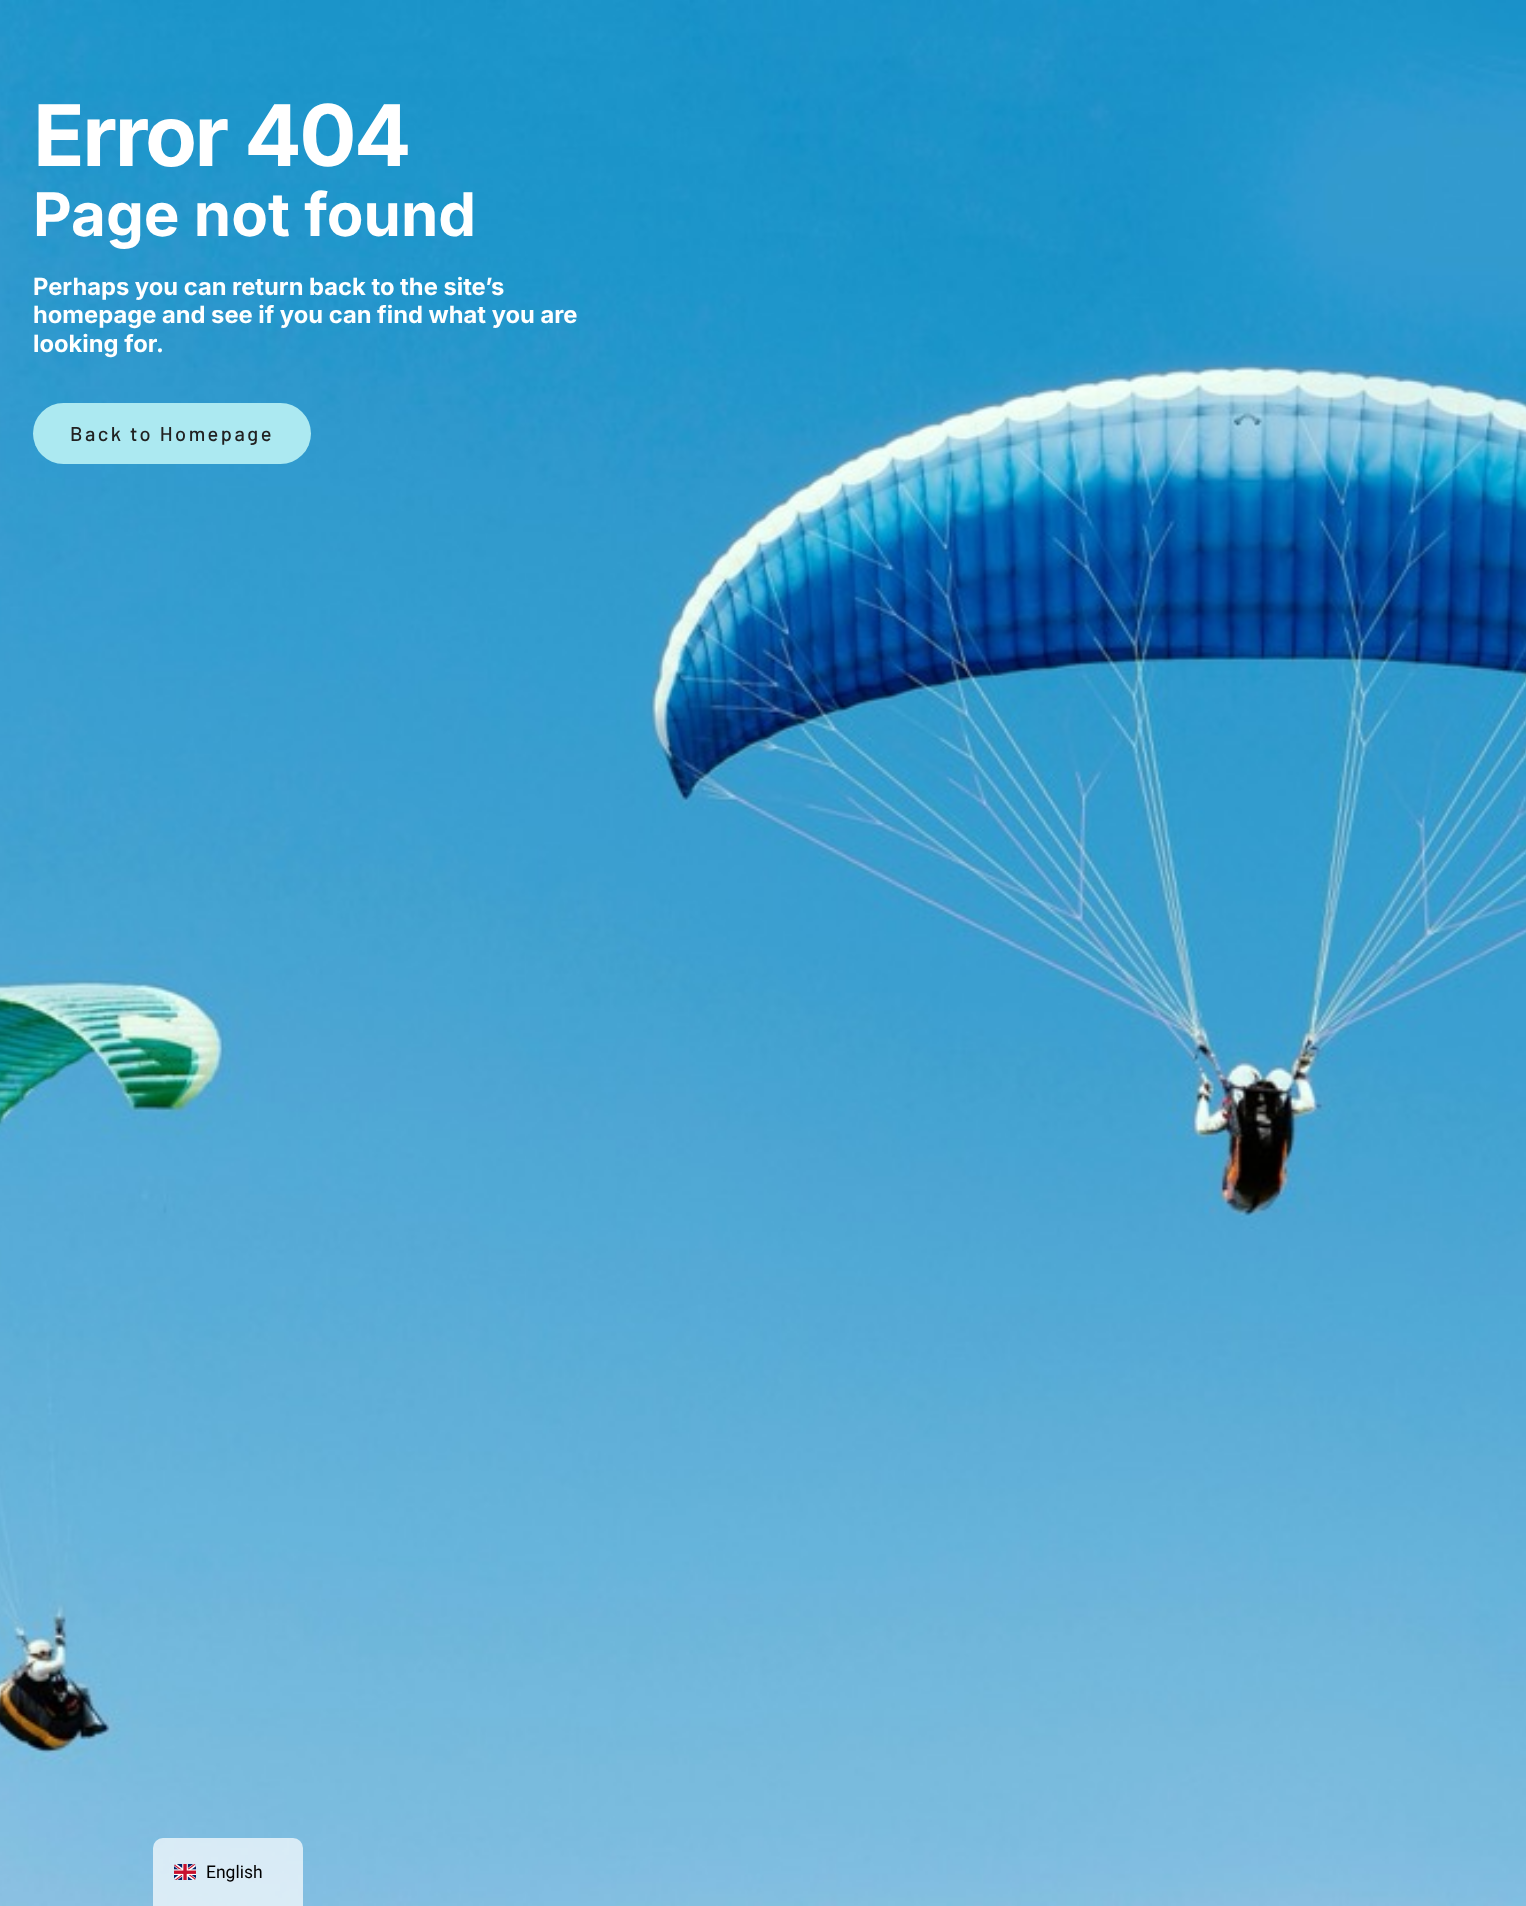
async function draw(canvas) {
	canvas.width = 1526;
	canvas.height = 1906;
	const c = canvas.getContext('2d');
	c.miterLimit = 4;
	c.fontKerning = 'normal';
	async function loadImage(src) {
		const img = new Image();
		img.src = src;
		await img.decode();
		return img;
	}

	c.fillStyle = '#fff';
	c.fillRect(0, 0, 1526, 1906);
	c.drawImage(await loadImage('img1.png'), 0, 0, 1526, 1906);
	c.letterSpacing = '-2.5px';
	c.font = 'bold 85px Inter';
	c.fillText('Error 404', 33, 166);
	c.letterSpacing = '0px';
	c.font = 'bold 60px Inter';
	c.fillText('Page not found', 33, 236);
	c.font = 'bold 23.75px Inter';
	for (const [text, x, y] of [
		['Perhaps you can return back to the site’s', 33, 295],
		['homepage and see if you can find what you are', 33, 323],
		['looking for.', 33, 352],
	]) {
		c.fillText(text, x, y);
	}
	c.fillStyle = '#ace9f1';
	c.beginPath();
	c.roundRect(33, 403, 278, 61, 30.5);
	c.fill();
	c.letterSpacing = '2.5px';
	c.font = '500 20px Barlow';
	c.fillStyle = '#212121';
	c.fillText('Back to Homepage', 70, 441);
	c.fillStyle = '#ffffffb3';
	c.beginPath();
	c.roundRect(153, 1838, 150, 68, [10, 10, 0, 0]);
	c.fill();
	c.drawImage(await loadImage('img2.png'), 174, 1864, 22, 16);
	c.letterSpacing = '0px';
	c.font = '17.5px Roboto';
	c.fillStyle = '#000';
	c.fillText('English', 206, 1878);
}

draw(document.querySelector('canvas'));
